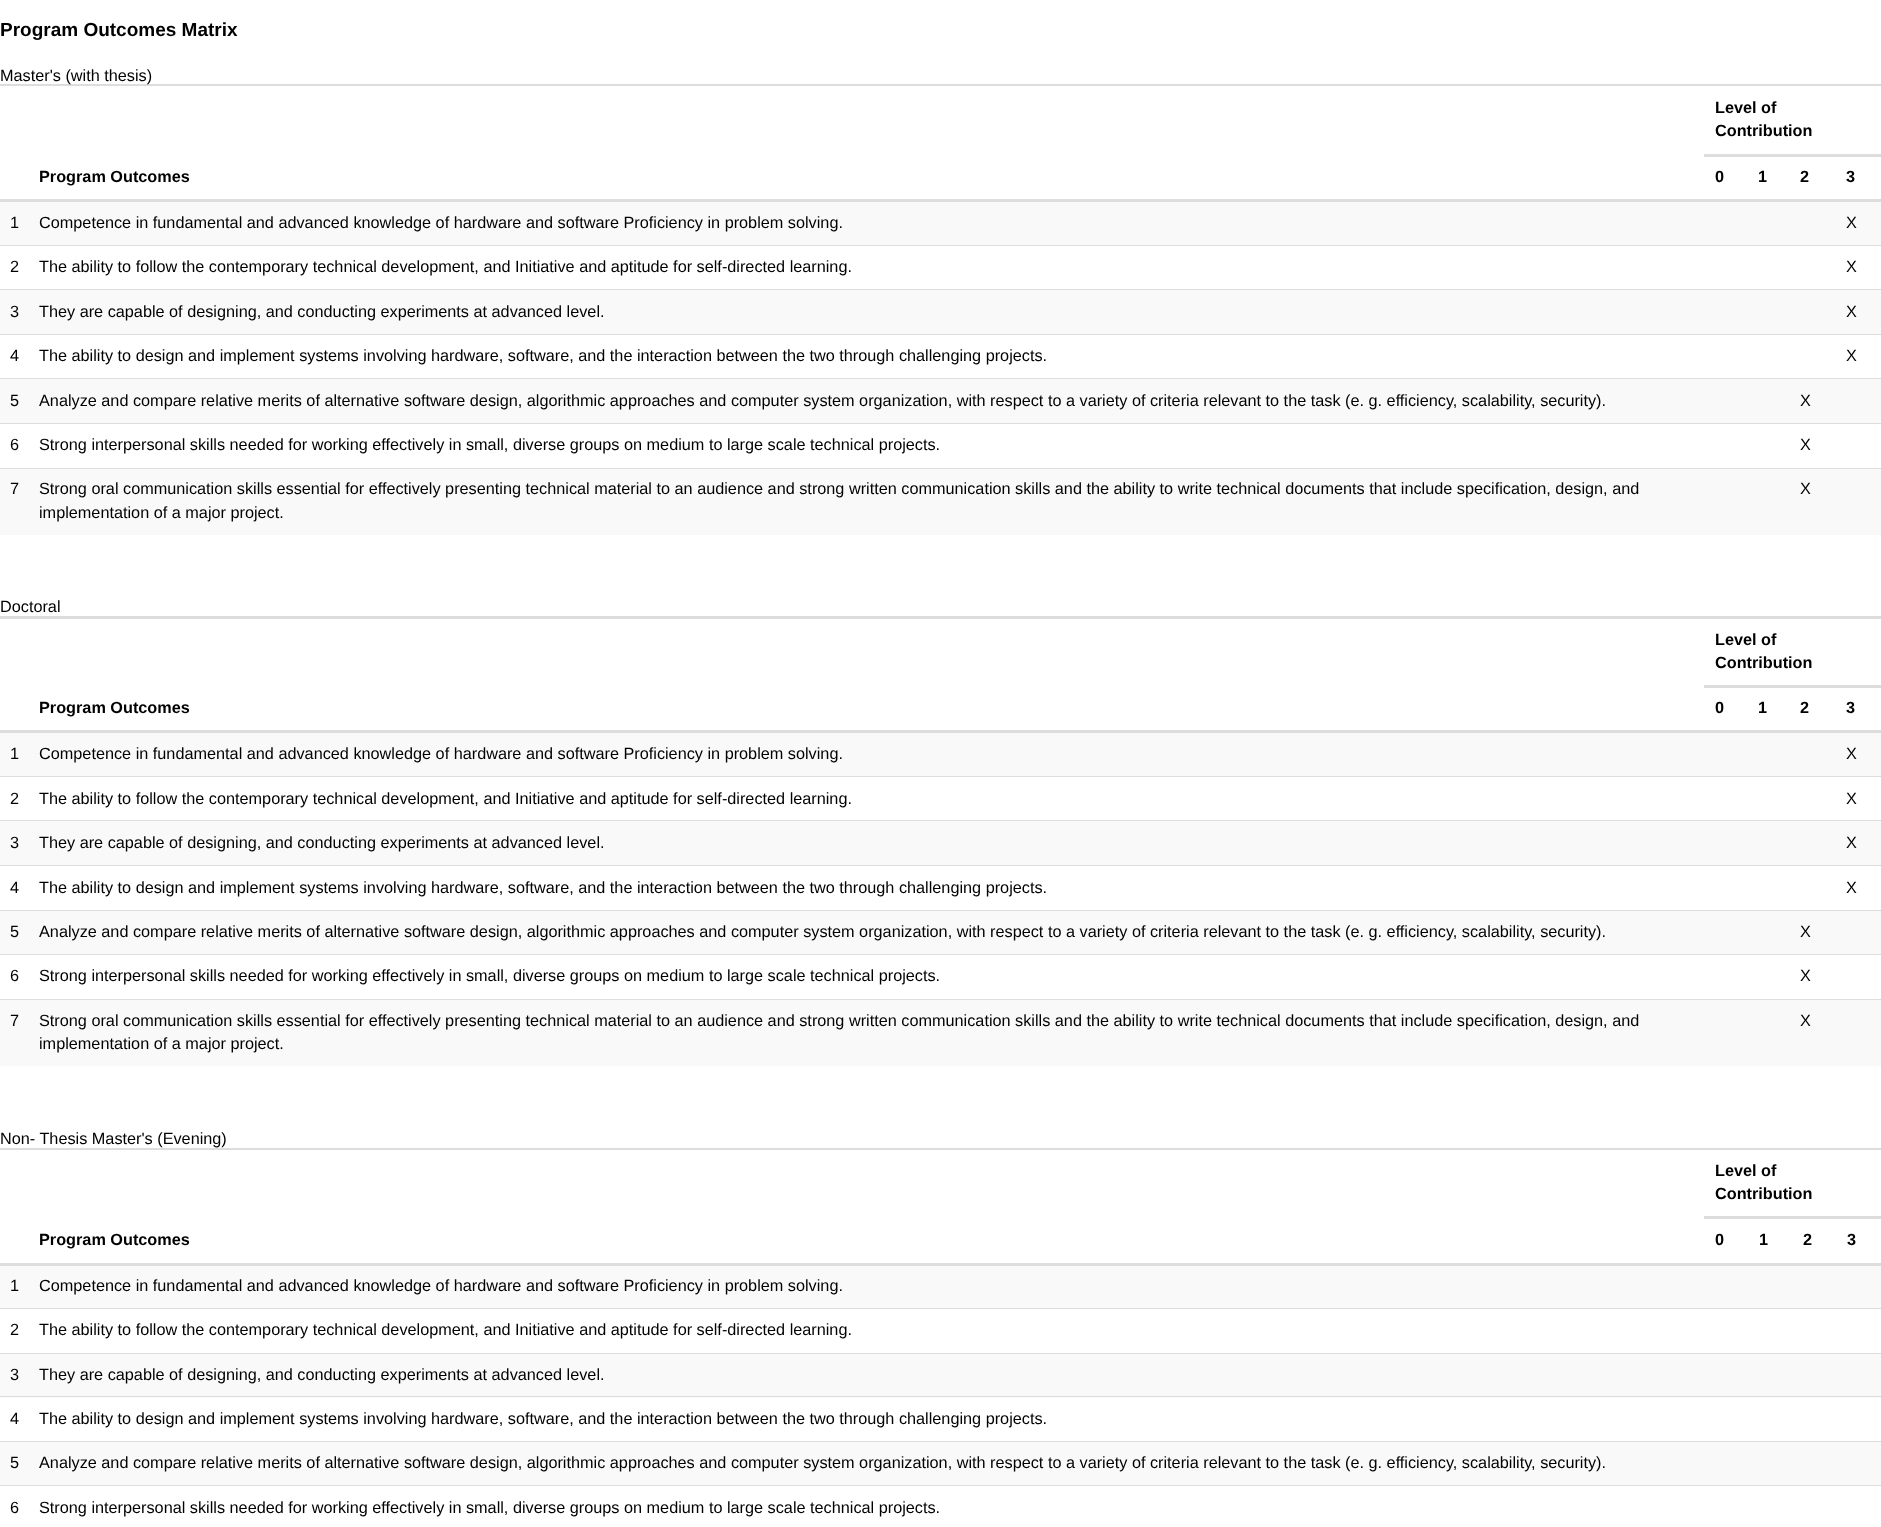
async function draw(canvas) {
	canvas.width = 1881;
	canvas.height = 1527;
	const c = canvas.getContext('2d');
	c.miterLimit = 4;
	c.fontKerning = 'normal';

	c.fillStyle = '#fff';
	c.fillRect(0, 0, 1881, 1527);
	c.font = 'bold 19px Liberation Sans';
	c.fillStyle = '#000';
	c.fillText('Program Outcomes Matrix', 0, 36);
	c.fillStyle = '#ddd';
	c.fillRect(0, 84, 1881, 2);
	c.font = '16.25px Liberation Sans';
	c.fillStyle = '#000';
	c.fillText('Master\'s (with thesis)', 0, 81);
	c.fillStyle = '#ddd';
	c.fillRect(1704, 154, 177, 3);
	c.font = 'bold 16.25px Liberation Sans';
	c.fillStyle = '#000';
	for (const [text, x, y] of [
		['Level of', 1715, 113],
		['Contribution', 1715, 136],
		['Program Outcomes', 39, 182],
		['0', 1715, 182],
		['1', 1758, 182],
		['2', 1800, 182],
	]) {
		c.fillText(text, x, y);
	}
	c.fillStyle = '#ddd';
	c.fillRect(0, 199, 1881, 3);
	c.fillStyle = '#000';
	c.fillText('3', 1846, 182);
	c.fillStyle = '#f9f9f9';
	c.fillRect(0, 202, 1881, 43);
	c.font = '16.25px Liberation Sans';
	c.fillStyle = '#000';
	for (const [text, x, y] of [
		['1', 10, 228],
		['Competence in fundamental and advanced knowledge of hardware and software Proficiency in problem solving.', 39, 228],
		['X', 1846, 228],
		['2', 10, 272],
		['The ability to follow the contemporary technical development, and Initiative and aptitude for self-directed learning.', 39, 272],
	]) {
		c.fillText(text, x, y);
	}
	c.fillStyle = '#ddd';
	c.fillRect(0, 245, 1881, 1);
	c.fillStyle = '#000';
	c.fillText('X', 1846, 272);
	c.fillStyle = '#f9f9f9';
	c.fillRect(0, 290, 1881, 44);
	c.fillStyle = '#000';
	c.fillText('3', 10, 317);
	c.fillText('They are capable of designing, and conducting experiments at advanced level.', 39, 317);
	c.fillStyle = '#ddd';
	c.fillRect(0, 289, 1881, 1);
	c.fillStyle = '#000';
	for (const [text, x, y] of [
		['X', 1846, 317],
		['4', 10, 361],
		['The ability to design and implement systems involving hardware, software, and the interaction between the two through challenging projects.', 39, 361],
	]) {
		c.fillText(text, x, y);
	}
	c.fillStyle = '#ddd';
	c.fillRect(0, 334, 1881, 1);
	c.fillStyle = '#000';
	c.fillText('X', 1846, 361);
	c.fillStyle = '#f9f9f9';
	c.fillRect(0, 379, 1881, 44);
	c.fillStyle = '#ddd';
	c.fillRect(0, 378, 1881, 1);
	c.fillStyle = '#000';
	for (const [text, x, y] of [
		['5', 10, 406],
		['Analyze and compare relative merits of alternative software design, algorithmic approaches and computer system organization, with respect to a variety of criteria relevant to the task (e. g. efficiency, scalability, security).', 39, 406],
		['X', 1800, 406],
	]) {
		c.fillText(text, x, y);
	}
	c.fillStyle = '#ddd';
	c.fillRect(0, 423, 1881, 1);
	c.fillStyle = '#000';
	for (const [text, x, y] of [
		['6', 10, 450],
		['Strong interpersonal skills needed for working effectively in small, diverse groups on medium to large scale technical projects.', 39, 450],
		['X', 1800, 450],
	]) {
		c.fillText(text, x, y);
	}
	c.fillStyle = '#f9f9f9';
	c.fillRect(0, 469, 1881, 66);
	c.fillStyle = '#ddd';
	c.fillRect(0, 468, 1881, 1);
	c.fillStyle = '#000';
	for (const [text, x, y] of [
		['7', 10, 494],
		['Strong oral communication skills essential for effectively presenting technical material to an audience and strong written communication skills and the ability to write technical documents that include specification, design, and', 39, 494],
		['implementation of a major project.', 39, 518],
		['X', 1800, 494],
	]) {
		c.fillText(text, x, y);
	}
	c.fillStyle = '#ddd';
	c.fillRect(0, 616, 1881, 3);
	c.fillStyle = '#000';
	c.fillText('Doctoral', 0, 612);
	c.fillStyle = '#ddd';
	c.fillRect(1704, 685, 177, 3);
	c.font = 'bold 16.25px Liberation Sans';
	c.fillStyle = '#000';
	for (const [text, x, y] of [
		['Level of', 1715, 645],
		['Contribution', 1715, 668],
		['Program Outcomes', 39, 713],
		['0', 1715, 713],
		['1', 1758, 713],
		['2', 1800, 713],
	]) {
		c.fillText(text, x, y);
	}
	c.fillStyle = '#ddd';
	c.fillRect(0, 730, 1881, 3);
	c.fillStyle = '#000';
	c.fillText('3', 1846, 713);
	c.fillStyle = '#f9f9f9';
	c.fillRect(0, 733, 1881, 43);
	c.font = '16.25px Liberation Sans';
	c.fillStyle = '#000';
	for (const [text, x, y] of [
		['1', 10, 759],
		['Competence in fundamental and advanced knowledge of hardware and software Proficiency in problem solving.', 39, 759],
		['X', 1846, 759],
		['2', 10, 804],
		['The ability to follow the contemporary technical development, and Initiative and aptitude for self-directed learning.', 39, 804],
	]) {
		c.fillText(text, x, y);
	}
	c.fillStyle = '#ddd';
	c.fillRect(0, 776, 1881, 1);
	c.fillStyle = '#000';
	c.fillText('X', 1846, 804);
	c.fillStyle = '#f9f9f9';
	c.fillRect(0, 821, 1881, 44);
	c.fillStyle = '#000';
	c.fillText('3', 10, 848);
	c.fillText('They are capable of designing, and conducting experiments at advanced level.', 39, 848);
	c.fillStyle = '#ddd';
	c.fillRect(0, 820, 1881, 1);
	c.fillStyle = '#000';
	for (const [text, x, y] of [
		['X', 1846, 848],
		['4', 10, 893],
		['The ability to design and implement systems involving hardware, software, and the interaction between the two through challenging projects.', 39, 893],
	]) {
		c.fillText(text, x, y);
	}
	c.fillStyle = '#ddd';
	c.fillRect(0, 865, 1881, 1);
	c.fillStyle = '#000';
	c.fillText('X', 1846, 893);
	c.fillStyle = '#f9f9f9';
	c.fillRect(0, 911, 1881, 43);
	c.fillStyle = '#ddd';
	c.fillRect(0, 910, 1881, 1);
	c.fillStyle = '#000';
	for (const [text, x, y] of [
		['5', 10, 937],
		['Analyze and compare relative merits of alternative software design, algorithmic approaches and computer system organization, with respect to a variety of criteria relevant to the task (e. g. efficiency, scalability, security).', 39, 937],
		['X', 1800, 937],
	]) {
		c.fillText(text, x, y);
	}
	c.fillStyle = '#ddd';
	c.fillRect(0, 954, 1881, 1);
	c.fillStyle = '#000';
	for (const [text, x, y] of [
		['6', 10, 981],
		['Strong interpersonal skills needed for working effectively in small, diverse groups on medium to large scale technical projects.', 39, 981],
		['X', 1800, 981],
	]) {
		c.fillText(text, x, y);
	}
	c.fillStyle = '#f9f9f9';
	c.fillRect(0, 1000, 1881, 66);
	c.fillStyle = '#ddd';
	c.fillRect(0, 999, 1881, 1);
	c.fillStyle = '#000';
	for (const [text, x, y] of [
		['7', 10, 1026],
		['Strong oral communication skills essential for effectively presenting technical material to an audience and strong written communication skills and the ability to write technical documents that include specification, design, and', 39, 1026],
		['implementation of a major project.', 39, 1049],
		['X', 1800, 1026],
	]) {
		c.fillText(text, x, y);
	}
	c.fillStyle = '#ddd';
	c.fillRect(0, 1148, 1881, 2);
	c.fillStyle = '#000';
	c.fillText('Non- Thesis Master\'s (Evening)', 0, 1144);
	c.fillStyle = '#ddd';
	c.fillRect(1704, 1216, 177, 3);
	c.font = 'bold 16.25px Liberation Sans';
	c.fillStyle = '#000';
	for (const [text, x, y] of [
		['Level of', 1715, 1176],
		['Contribution', 1715, 1199],
		['Program Outcomes', 39, 1245],
		['0', 1715, 1245],
		['1', 1759, 1245],
		['2', 1803, 1245],
	]) {
		c.fillText(text, x, y);
	}
	c.fillStyle = '#ddd';
	c.fillRect(0, 1263, 1881, 3);
	c.fillStyle = '#000';
	c.fillText('3', 1847, 1245);
	c.fillStyle = '#f9f9f9';
	c.fillRect(0, 1266, 1881, 42);
	c.font = '16.25px Liberation Sans';
	c.fillStyle = '#000';
	c.fillText('1', 10, 1291);
	c.fillText('Competence in fundamental and advanced knowledge of hardware and software Proficiency in problem solving.', 39, 1291);
	c.fillStyle = '#ddd';
	c.fillRect(0, 1308, 1881, 1);
	c.fillStyle = '#000';
	c.fillText('2', 10, 1335);
	c.fillText('The ability to follow the contemporary technical development, and Initiative and aptitude for self-directed learning.', 39, 1335);
	c.fillStyle = '#f9f9f9';
	c.fillRect(0, 1354, 1881, 44);
	c.fillStyle = '#ddd';
	c.fillRect(0, 1353, 1881, 1);
	c.fillStyle = '#000';
	c.fillText('3', 10, 1380);
	c.fillText('They are capable of designing, and conducting experiments at advanced level.', 39, 1380);
	c.fillStyle = '#ddd';
	c.fillRect(0, 1396, 1881, 1);
	c.fillStyle = '#000';
	c.fillText('4', 10, 1424);
	c.fillText('The ability to design and implement systems involving hardware, software, and the interaction between the two through challenging projects.', 39, 1424);
	c.fillStyle = '#f9f9f9';
	c.fillRect(0, 1442, 1881, 43);
	c.fillStyle = '#ddd';
	c.fillRect(0, 1441, 1881, 1);
	c.fillStyle = '#000';
	c.fillText('5', 10, 1468);
	c.fillText('Analyze and compare relative merits of alternative software design, algorithmic approaches and computer system organization, with respect to a variety of criteria relevant to the task (e. g. efficiency, scalability, security).', 39, 1468);
	c.fillStyle = '#ddd';
	c.fillRect(0, 1485, 1881, 1);
	c.fillStyle = '#000';
	c.fillText('6', 10, 1513);
	c.fillText('Strong interpersonal skills needed for working effectively in small, diverse groups on medium to large scale technical projects.', 39, 1513);
}

draw(document.querySelector('canvas'));
